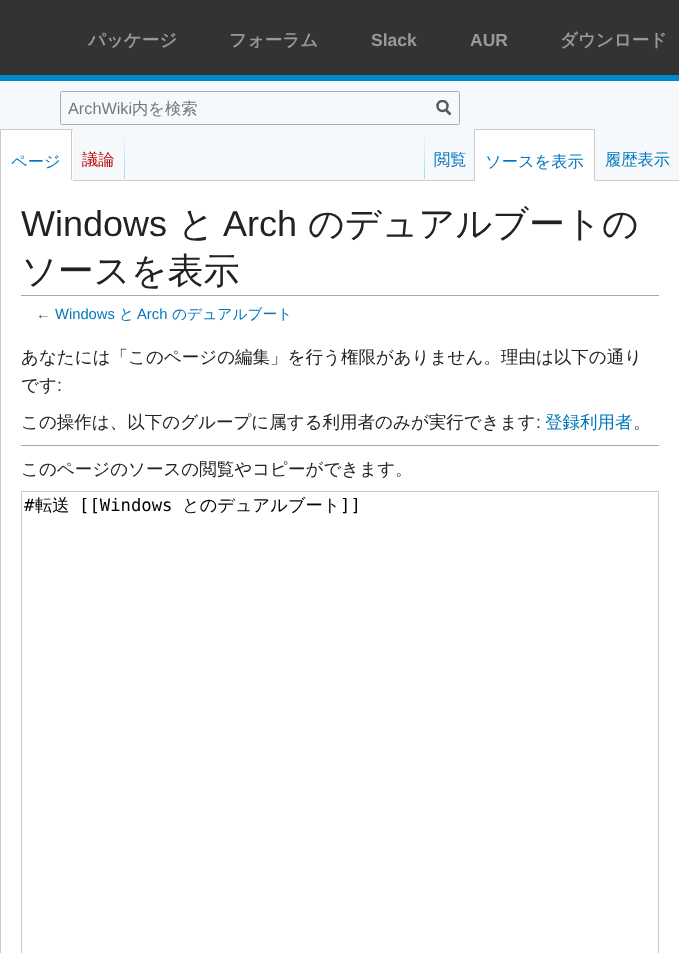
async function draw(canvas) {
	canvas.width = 679;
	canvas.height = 953;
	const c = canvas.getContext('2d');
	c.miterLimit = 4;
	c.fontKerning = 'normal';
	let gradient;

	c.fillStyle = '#f6f9fc';
	c.fillRect(0, 0, 679, 953);
	c.fillStyle = '#333';
	c.fillRect(0, 0, 679, 75);
	c.fillStyle = '#08c';
	c.fillRect(0, 75, 679, 6);
	c.font = 'bold 17.5px WenQuanYi Zen Hei';
	c.fillStyle = '#999';
	c.fillText('パッケージ', 88, 46);
	c.fillText('フォーラム', 229, 46);
	c.font = 'bold 17.5px Liberation Sans';
	c.fillText('Slack', 371, 46);
	c.fillText('AUR', 470, 46);
	c.font = 'bold 17.5px WenQuanYi Zen Hei';
	c.fillText('ダウンロード', 560, 46);
	c.fillStyle = '#fff';
	c.fillRect(1, 130, 72, 50);
	c.fillStyle = '#ccc';
	c.fillRect(0, 129, 73, 1);
	c.fillStyle = '#fff';
	c.beginPath();
	c.rect(0.5, 180.5, 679, 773);
	c.fill();
	c.strokeStyle = '#ccc';
	c.stroke();
	for (const [x, y, w, h, color] of [
		[71, 129, 1, 52, '#ccc'],
		[0, 180, 73, 1, '#fff'],
		[0, 129, 1, 52, '#ccc'],
	]) {
		c.fillStyle = color;
		c.fillRect(x, y, w, h);
	}
	c.font = '500 16.25px WenQuanYi Zen Hei';
	c.fillStyle = '#07b';
	c.fillText('ページ', 11, 167);
	gradient = c.createLinearGradient(124, 129, 124, 179);
	gradient.addColorStop(0, '#f6f9fc');
	gradient.addColorStop(1, '#a7d7f9');
	c.fillStyle = gradient;
	c.fillRect(124, 129, 1, 50);
	c.fillStyle = '#b00';
	c.fillText('議論', 82, 165);
	c.beginPath();
	c.roundRect(60.5, 91.5, 399, 33, 2);
	c.strokeStyle = '#a2a9b1';
	c.stroke();
	c.font = '16.25px Liberation Sans';
	c.fillStyle = '#72777d';
	c.fillText('ArchWiki', 68, 114);
	c.font = '500 16.25px WenQuanYi Zen Hei';
	c.fillText('内を検索', 132, 114);
	c.beginPath();
	c.moveTo(450.5, 114.5);
	c.lineTo(445.5, 109.5);
	c.strokeStyle = '#54595d';
	c.lineWidth = 2.5;
	c.stroke();
	c.save();
	c.beginPath();
	c.rect(436, 100, 15, 16);
	c.clip();
	c.beginPath();
	c.arc(442.5, 106, 5, 0, 2 * Math.PI);
	c.stroke();
	c.restore();
	gradient = c.createLinearGradient(424, 129, 424, 179);
	gradient.addColorStop(0, '#f6f9fc');
	gradient.addColorStop(1, '#a7d7f9');
	c.fillStyle = gradient;
	c.fillRect(424, 129, 1, 50);
	c.fillStyle = '#07b';
	c.fillText('閲覧', 434, 165);
	for (const [x, y, w, h, color] of [
		[475, 130, 119, 50, '#fff'],
		[474, 129, 121, 1, '#ccc'],
		[594, 129, 1, 52, '#ccc'],
		[474, 180, 121, 1, '#fff'],
		[474, 129, 1, 52, '#ccc'],
	]) {
		c.fillStyle = color;
		c.fillRect(x, y, w, h);
	}
	c.fillStyle = '#07b';
	c.fillText('ソースを表示', 485, 167);
	c.fillText('履歴表示', 605, 165);
	c.fillStyle = '#a2a9b1';
	c.fillRect(21, 295, 638, 1);
	c.font = '36px Liberation Sans';
	c.fillStyle = '#222';
	c.fillText('Windows', 21, 236);
	c.font = '500 36px WenQuanYi Zen Hei';
	c.fillText('と', 178, 236);
	c.font = '36px Liberation Sans';
	c.fillText('Arch', 223, 236);
	c.font = '500 36px WenQuanYi Zen Hei';
	c.fillText('のデュアルブートの', 308, 236);
	c.fillText('ソースを表示', 21, 283);
	c.font = '14.75px Liberation Sans';
	c.fillStyle = '#54595d';
	c.fillText('←', 36, 319);
	c.fillStyle = '#07b';
	c.fillText('Windows', 55, 319);
	c.font = '500 14.75px WenQuanYi Zen Hei';
	c.fillText('と', 119, 319);
	c.font = '14.75px Liberation Sans';
	c.fillText('Arch', 137, 319);
	c.font = '500 14.75px WenQuanYi Zen Hei';
	c.fillText('のデュアルブート', 172, 319);
	c.font = '500 17.5px WenQuanYi Zen Hei';
	c.fillStyle = '#222';
	c.fillText('あなたには「このページの編集」を行う権限がありません。理由は以下の通り', 21, 363);
	c.fillText('です', 21, 391);
	c.font = '17.5px Liberation Sans';
	c.fillText(':', 57, 391);
	c.font = '500 17.5px WenQuanYi Zen Hei';
	c.fillText('この操作は、以下のグループに属する利用者のみが実行できます', 21, 428);
	c.font = '17.5px Liberation Sans';
	c.fillText(':', 536, 428);
	c.font = '500 17.5px WenQuanYi Zen Hei';
	c.fillStyle = '#07b';
	c.fillText('登録利用者', 545, 428);
	c.fillStyle = '#222';
	c.fillText('。', 633, 428);
	c.fillStyle = '#a2a9b1';
	c.fillRect(21, 445, 638, 1);
	c.fillStyle = '#222';
	c.fillText('このページのソースの閲覧やコピーができます。', 21, 475);
	c.strokeStyle = '#c8ccd1';
	c.lineWidth = 1;
	c.strokeRect(21.5, 491.5, 637, 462);
	c.font = '17.25px DejaVu Sans Mono';
	c.fillStyle = '#000';
	c.fillText('#', 24, 511);
	c.font = '500 17.25px WenQuanYi Zen Hei';
	c.fillText('転送', 35, 511);
	c.font = '17.25px DejaVu Sans Mono';
	c.fillText('[[Windows', 79, 511);
	c.font = '500 17.25px WenQuanYi Zen Hei';
	c.fillText('とのデュアルブート', 182, 511);
	c.font = '17.25px DejaVu Sans Mono';
	c.fillText(']]', 340, 511);
}

draw(document.querySelector('canvas'));
